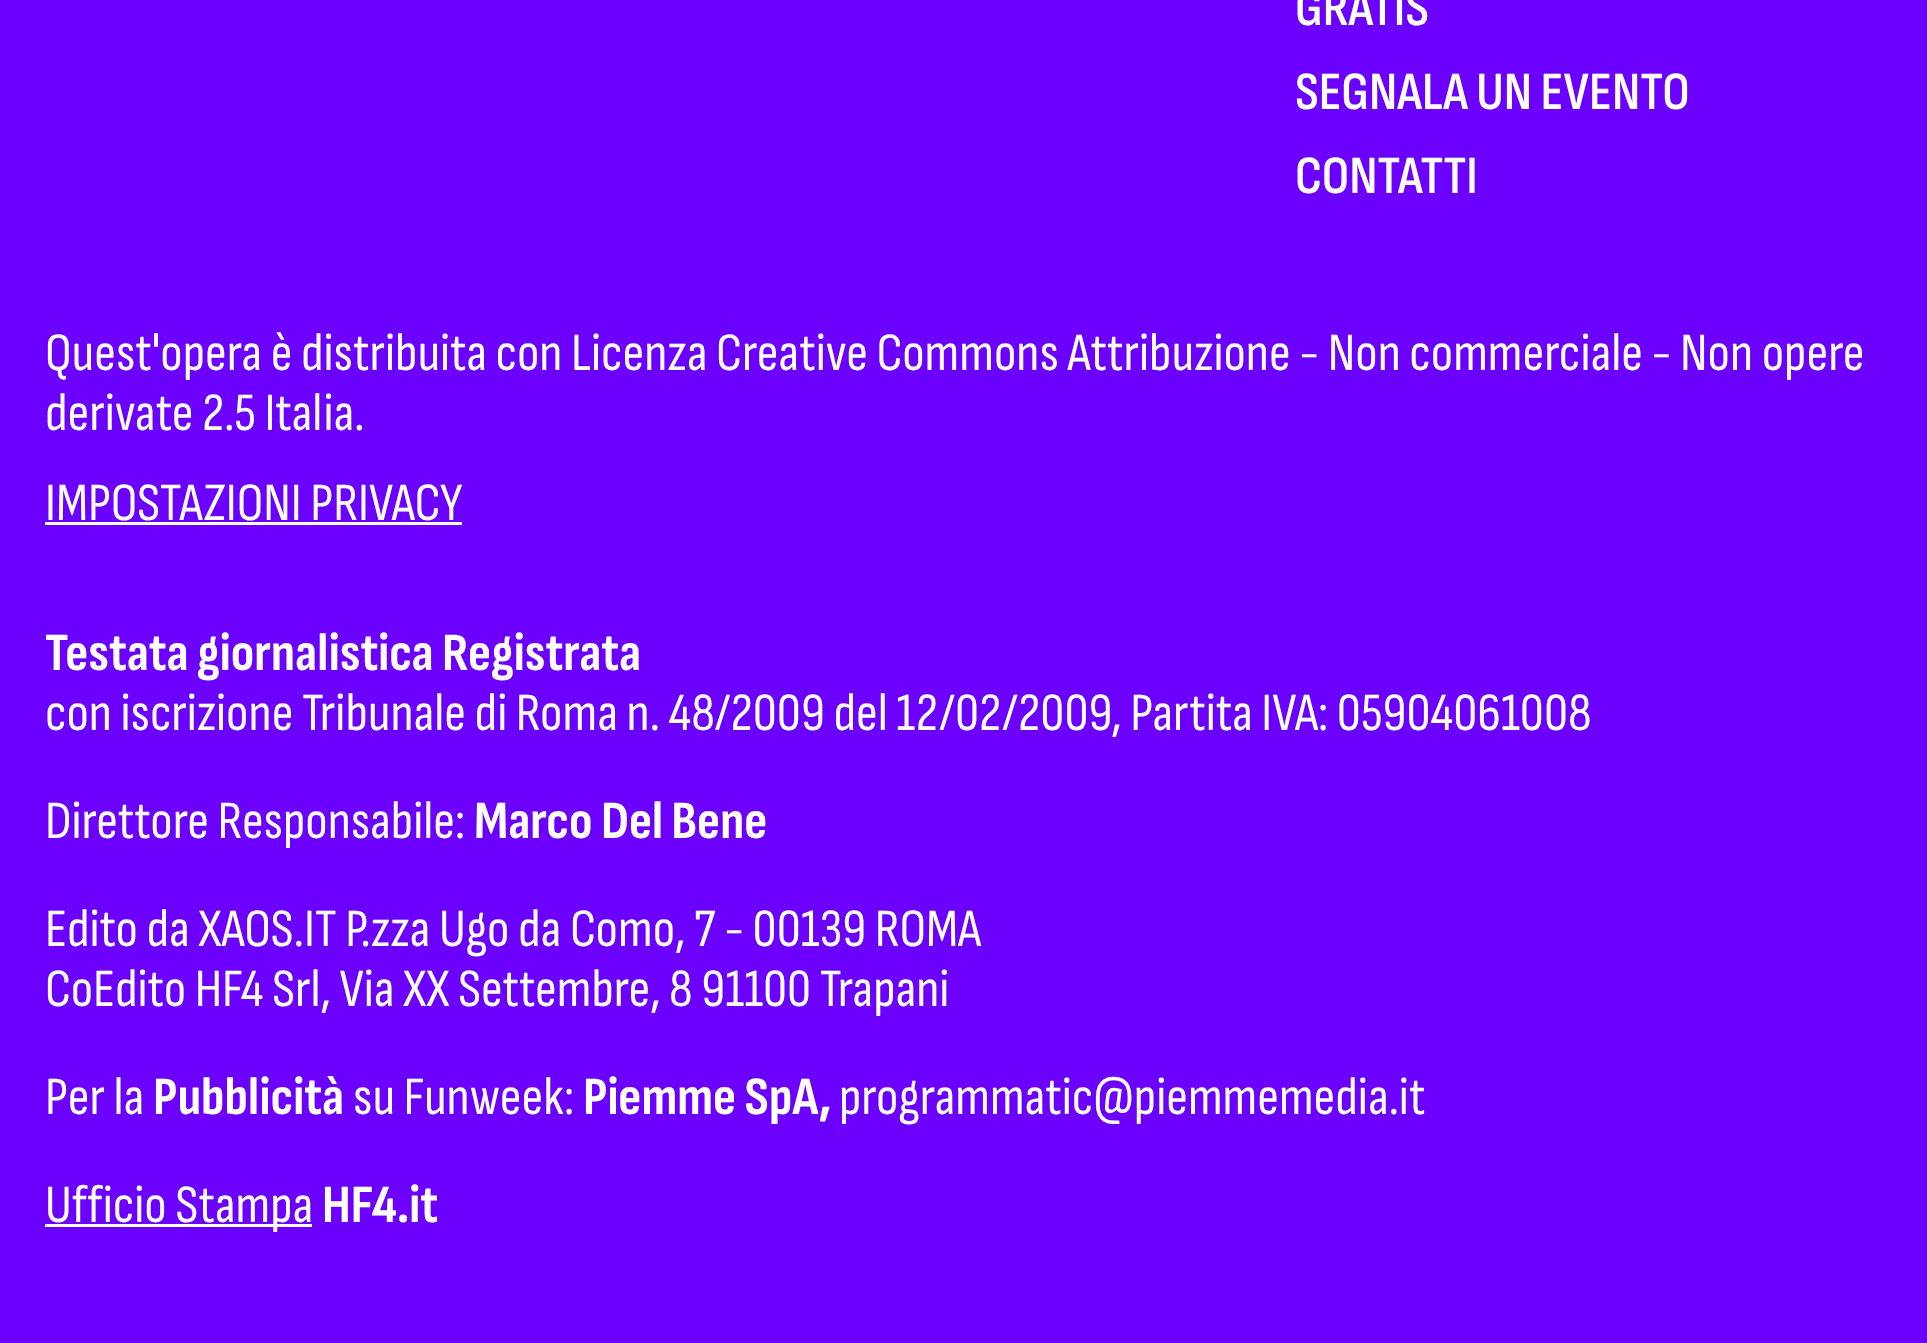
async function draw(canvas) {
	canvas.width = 1927;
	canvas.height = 1343;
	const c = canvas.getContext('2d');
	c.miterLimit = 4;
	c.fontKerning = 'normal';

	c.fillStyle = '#fff';
	c.fillRect(0, 0, 1927, 1343);
	c.fillStyle = '#6b00fe';
	c.beginPath();
	c.moveTo(0, -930);
	c.lineTo(0, 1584);
	c.lineTo(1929, 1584);
	c.lineTo(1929, -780);
	c.closePath();
	c.fill();
	c.font = '600 54px Sofia Sans Condensed';
	c.fillStyle = '#fff';
	for (const [text, x, y] of [
		['GRATIS', 1295, 25],
		['SEGNALA UN EVENTO', 1295, 109],
		['CONTATTI', 1295, 193],
	]) {
		c.fillText(text, x, y);
	}
	c.font = '54px Sofia Sans Condensed';
	for (const [text, x, y] of [
		['Quest\'opera è distribuita con Licenza Creative Commons Attribuzione - Non commerciale - Non opere', 45, 370],
		['derivate 2.5 Italia.', 45, 430],
		['IMPOSTAZIONI PRIVACY', 45, 520],
	]) {
		c.fillText(text, x, y);
	}
	c.fillRect(45, 522, 417, 3);
	c.font = 'bold 54px Sofia Sans Condensed';
	c.fillText('Testata giornalistica Registrata', 45, 670);
	c.font = '54px Sofia Sans Condensed';
	c.fillText('con iscrizione Tribunale di Roma n. 48/2009 del 12/02/2009, Partita IVA: 05904061008', 45, 730);
	c.fillText('Direttore Responsabile:', 45, 838);
	c.font = 'bold 54px Sofia Sans Condensed';
	c.fillText('Marco Del Bene', 474, 838);
	c.font = '54px Sofia Sans Condensed';
	for (const [text, x, y] of [
		['Edito da XAOS.IT P.zza Ugo da Como, 7 - 00139 ROMA', 45, 946],
		['CoEdito HF4 Srl, Via XX Settembre, 8 91100 Trapani', 45, 1006],
		['Per la', 45, 1114],
	]) {
		c.fillText(text, x, y);
	}
	c.font = 'bold 54px Sofia Sans Condensed';
	c.fillText('Pubblicità', 153, 1114);
	c.font = '54px Sofia Sans Condensed';
	c.fillText('su Funweek:', 353, 1114);
	c.font = 'bold 54px Sofia Sans Condensed';
	c.fillText('Piemme SpA,', 583, 1114);
	c.font = '54px Sofia Sans Condensed';
	c.fillText('programmatic@piemmemedia.it', 839, 1114);
	c.fillRect(45, 1224, 267, 3);
	c.fillText('Ufficio Stampa', 45, 1222);
	c.font = 'bold 54px Sofia Sans Condensed';
	c.fillText('HF4.it', 322, 1222);
}

draw(document.querySelector('canvas'));
